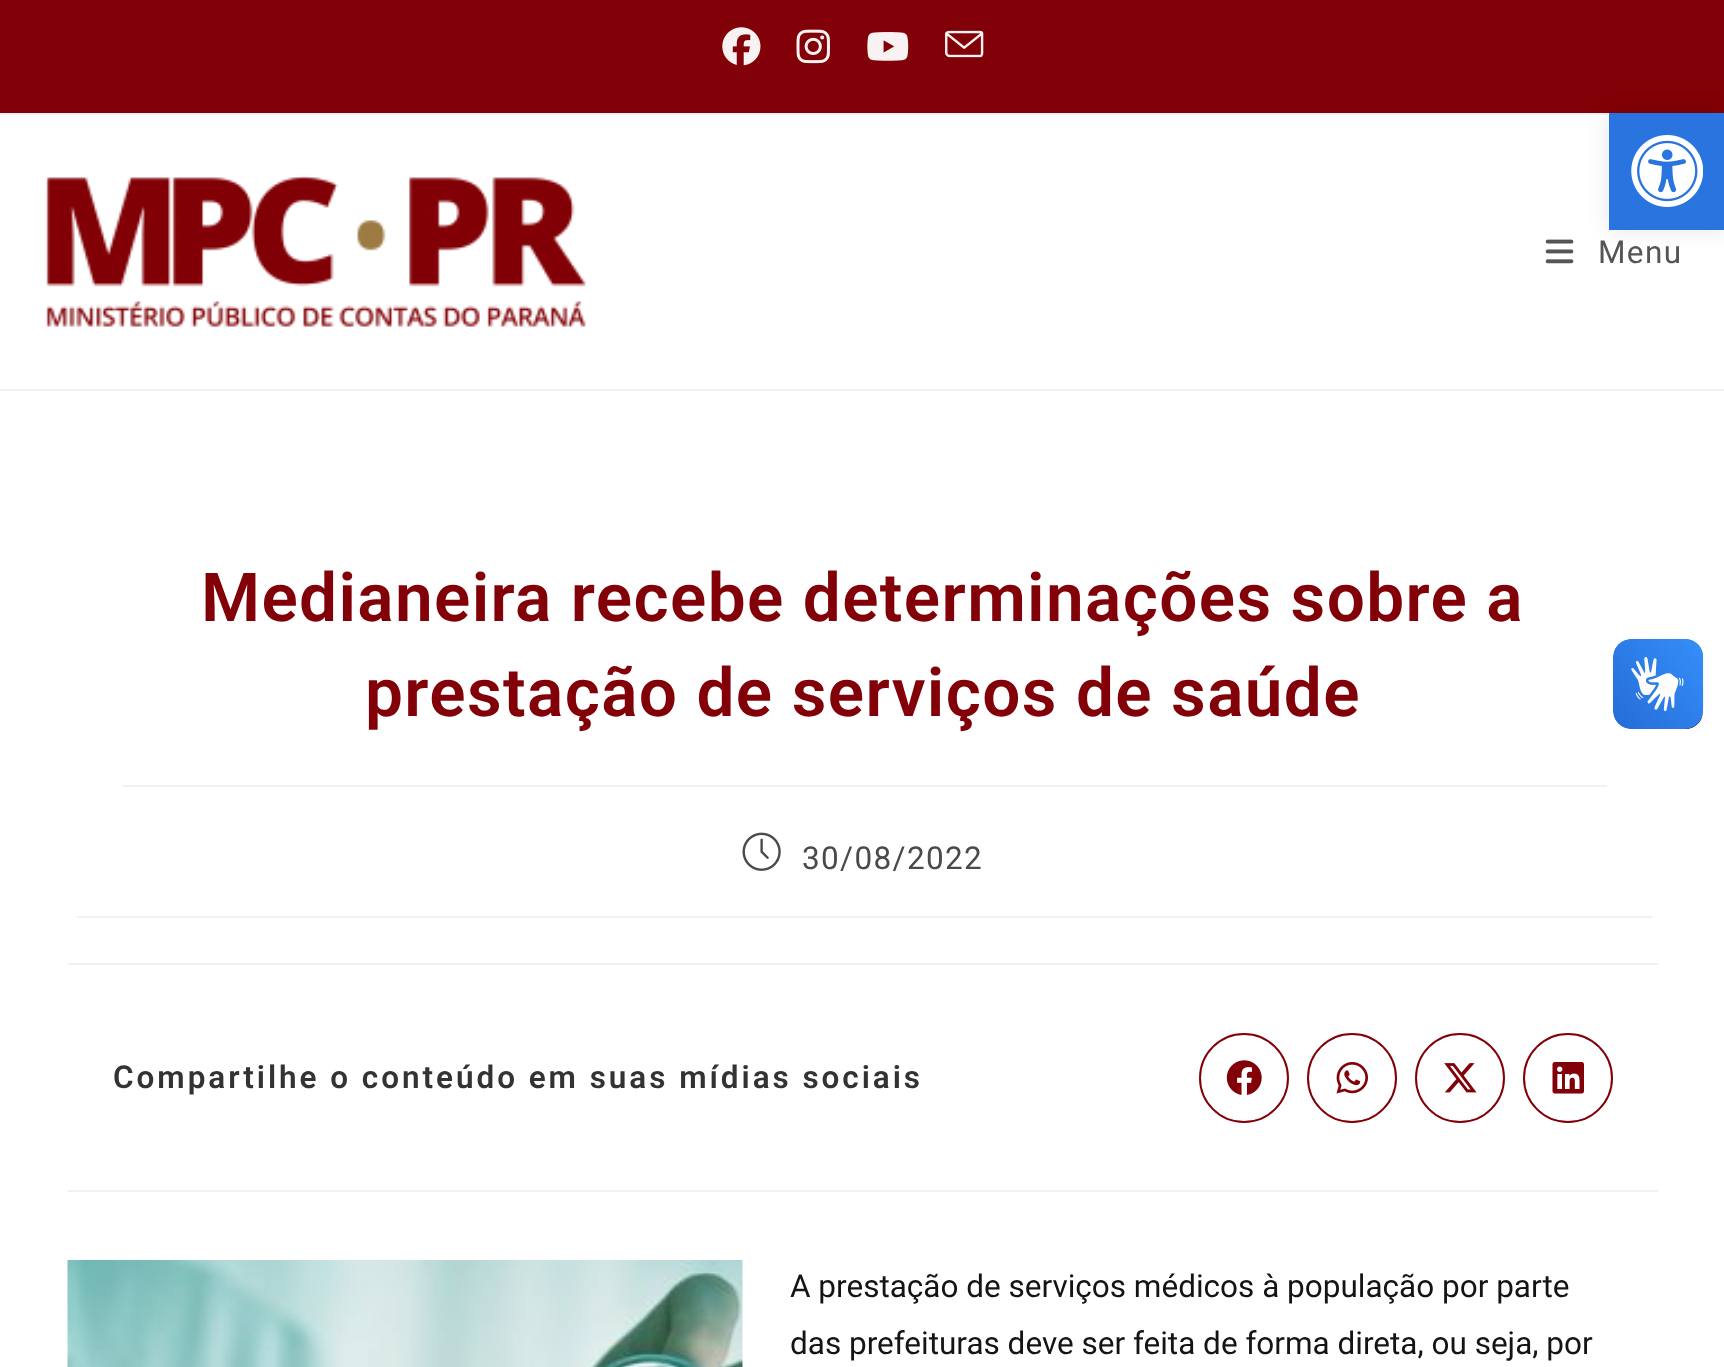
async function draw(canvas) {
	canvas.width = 1724;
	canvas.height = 1367;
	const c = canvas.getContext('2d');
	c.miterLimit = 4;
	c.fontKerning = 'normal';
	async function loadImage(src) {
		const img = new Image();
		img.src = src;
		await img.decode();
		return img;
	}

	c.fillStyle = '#fff';
	c.fillRect(0, 0, 1724, 1367);
	c.fillStyle = '#820007';
	c.fillRect(0, 0, 1724, 113);
	c.fillStyle = '#f1f1f1';
	c.fillRect(0, 113, 1609, 2);
	c.fillStyle = '#0000001a';
	c.filter = 'blur(11px)';
	c.beginPath();
	c.rect(1609, 113, 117, 117);
	c.fill();
	c.filter = 'none';
	c.fillStyle = '#2974df';
	c.fillRect(1609, 113, 115, 117);
	c.drawImage(await loadImage('img1.png'), 1631, 135, 72, 72);
	c.drawImage(await loadImage('img2.png'), 722, 27, 39, 39);
	c.drawImage(await loadImage('img3.png'), 796, 29, 34, 35);
	c.drawImage(await loadImage('img4.png'), 867, 32, 42, 29);
	c.drawImage(await loadImage('img5.png'), 945, 30, 39, 28);
	c.fillStyle = '#f1f1f1';
	c.fillRect(0, 389, 1724, 2);
	c.drawImage(await loadImage('img6.png'), 46, 175, 540, 152);
	c.drawImage(await loadImage('img7.png'), 1545, 239, 29, 25);
	c.letterSpacing = '1.35px';
	c.font = '31.5px Roboto';
	c.fillStyle = '#555';
	c.fillText('Menu', 1598, 263);
	c.fillStyle = '#f1f1f1';
	c.fillRect(122, 785, 1485, 2);
	c.font = '600 67.5px Roboto';
	c.fillStyle = '#820007';
	c.fillText('Medianeira recebe determinações sobre a', 201, 621);
	c.fillText('prestação de serviços de saúde', 365, 716);
	c.fillStyle = '#f1f1f1';
	c.fillRect(77, 916, 1575, 2);
	c.drawImage(await loadImage('img8.png'), 742, 832, 39, 39);
	c.font = '31.5px Roboto';
	c.fillStyle = '#4a4a4a';
	c.fillText('30/08/2022', 802, 869);
	c.fillStyle = '#f1f1f1';
	c.fillRect(68, 963, 1590, 2);
	c.fillRect(68, 1190, 1590, 2);
	c.letterSpacing = '2.95px';
	c.font = '600 31.5px Roboto';
	c.fillStyle = '#333';
	c.fillText('Compartilhe o conteúdo em suas mídias sociais', 113, 1088);
	c.beginPath();
	c.arc(1244, 1078, 44, 0, 2 * Math.PI);
	c.strokeStyle = '#820007';
	c.lineWidth = 2;
	c.stroke();
	c.drawImage(await loadImage('img9.png'), 1226, 1060, 36, 35);
	c.beginPath();
	c.arc(1352, 1078, 44, 0, 2 * Math.PI);
	c.stroke();
	c.drawImage(await loadImage('img10.png'), 1336, 1062, 32, 32);
	c.beginPath();
	c.arc(1460, 1078, 44, 0, 2 * Math.PI);
	c.stroke();
	c.drawImage(await loadImage('img11.png'), 1444, 1063, 33, 30);
	c.beginPath();
	c.arc(1568, 1078, 44, 0, 2 * Math.PI);
	c.stroke();
	c.drawImage(await loadImage('img12.png'), 1552, 1062, 32, 32);
	c.drawImage(await loadImage('img13.png'), 67, 1260, 676, 107);
	c.letterSpacing = '0px';
	c.font = '31.5px Roboto';
	c.fillStyle = '#141414';
	c.fillText('A prestação de serviços médicos à população por parte', 790, 1297);
	c.fillText('das prefeituras deve ser feita de forma direta, ou seja, por', 790, 1354);
	c.drawImage(await loadImage('img14.png'), 1613, 639, 91, 90);
	c.drawImage(await loadImage('img15.png'), 1613, 639, 90, 90);
}

draw(document.querySelector('canvas'));
